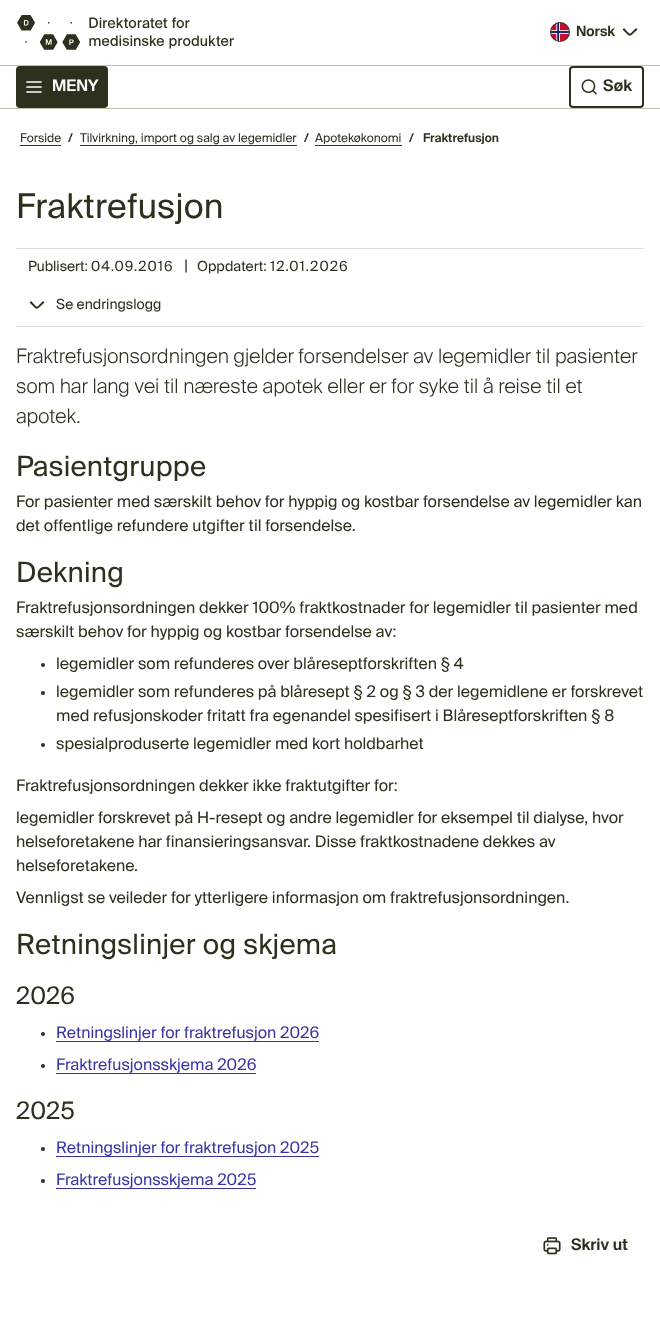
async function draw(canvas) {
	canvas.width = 660;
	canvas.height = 1340;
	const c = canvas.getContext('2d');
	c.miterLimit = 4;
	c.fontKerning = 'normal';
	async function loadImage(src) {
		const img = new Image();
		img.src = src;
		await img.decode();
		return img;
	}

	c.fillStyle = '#fff';
	c.fillRect(0, 0, 660, 1340);
	c.drawImage(await loadImage('img1.png'), 17, 15, 217, 35);
	c.drawImage(await loadImage('img2.png'), 550, 22, 20, 20);
	c.font = '600 14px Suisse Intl';
	c.fillStyle = '#2c301d';
	c.fillText('Norsk', 576, 36);
	c.beginPath();
	c.moveTo(636, 29.5);
	c.bezierCurveTo(629, 36.5, 630.5, 36.5, 624, 29.5);
	c.strokeStyle = '#2c301d';
	c.lineWidth = 2;
	c.lineCap = 'square';
	c.lineJoin = 'round';
	c.stroke();
	c.fillStyle = '#bec3ad';
	c.fillRect(0, 65, 660, 1);
	c.fillStyle = '#2c301d';
	c.beginPath();
	c.roundRect(16, 66, 92, 42, 4);
	c.fill();
	c.beginPath();
	c.moveTo(27, 82);
	c.lineTo(41, 82);
	c.moveTo(27, 87);
	c.lineTo(41, 87);
	c.moveTo(27, 92);
	c.lineTo(41, 92);
	c.strokeStyle = '#fff';
	c.lineWidth = 1.7;
	c.lineCap = 'round';
	c.stroke();
	c.font = '600 16px Suisse Intl';
	c.fillStyle = '#fdfdfd';
	c.fillText('MENY', 52, 91);
	c.beginPath();
	c.roundRect(570, 67, 73, 40, 3);
	c.strokeStyle = '#2c301d';
	c.lineWidth = 2;
	c.lineJoin = 'miter';
	c.stroke();
	c.drawImage(await loadImage('img3.png'), 581, 79, 16, 16);
	c.fillStyle = '#2c301d';
	c.fillText('Søk', 603, 91);
	c.fillStyle = '#bec3ad';
	c.fillRect(0, 108, 660, 1);
	c.font = '12px Suisse Intl';
	c.fillStyle = '#2c301d';
	c.fillText('Forside', 20, 142);
	c.fillRect(20, 145, 41, 1);
	c.font = '600 12px Suisse Intl';
	c.fillText('/', 68, 142);
	c.font = '12px Suisse Intl';
	c.fillText('Tilvirkning, import og salg av legemidler', 80, 142);
	c.fillRect(80, 145, 217, 1);
	c.font = '600 12px Suisse Intl';
	c.fillText('/', 304, 142);
	c.font = '12px Suisse Intl';
	c.fillText('Apotekøkonomi', 315, 142);
	c.fillRect(315, 145, 87, 1);
	c.font = '600 12px Suisse Intl';
	c.fillText('/', 409, 142);
	c.fillText('Fraktrefusjon', 423, 142);
	c.letterSpacing = '0.25px';
	c.font = '34px Suisse Intl';
	c.fillText('Fraktrefusjon', 16, 218);
	c.fillStyle = '#dedede';
	c.fillRect(16, 248, 628, 1);
	c.letterSpacing = '0px';
	c.font = '14px Suisse Intl';
	c.fillStyle = '#2c301d';
	c.fillText('Publisert:', 28, 271);
	c.letterSpacing = '1px';
	c.fillText('04.09.2016', 91, 271);
	c.letterSpacing = '0px';
	c.font = '16px Suisse Intl';
	c.fillText('|', 184, 271);
	c.font = '14px Suisse Intl';
	c.fillText('Oppdatert:', 197, 271);
	c.letterSpacing = '1px';
	c.fillText('12.01.2026', 270, 271);
	c.beginPath();
	c.moveTo(43, 302.5);
	c.bezierCurveTo(36, 309.5, 37.5, 309.5, 31, 302.5);
	c.lineCap = 'square';
	c.lineJoin = 'round';
	c.stroke();
	c.letterSpacing = '0px';
	c.fillText('Se endringslogg', 56, 309);
	c.fillStyle = '#dedede';
	c.fillRect(16, 326, 628, 1);
	c.font = '300 20px Suisse Intl';
	c.fillStyle = '#2c301d';
	for (const [text, x, y] of [
		['Fraktrefusjonsordningen gjelder forsendelser av legemidler til pasienter', 16, 363],
		['som har lang vei til næreste apotek eller er for syke til å reise til et', 16, 393],
		['apotek.', 16, 423],
	]) {
		c.fillText(text, x, y);
	}
	c.letterSpacing = '0.25px';
	c.font = '28px Suisse Intl';
	c.fillText('Pasientgruppe', 16, 476);
	c.letterSpacing = '0px';
	c.font = '16px Suisse Intl';
	c.fillText('For pasienter med særskilt behov for hyppig og kostbar forsendelse av legemidler kan', 16, 507);
	c.fillText('det offentlige refundere utgifter til forsendelse.', 16, 531);
	c.letterSpacing = '0.25px';
	c.font = '28px Suisse Intl';
	c.fillText('Dekning', 16, 582);
	c.letterSpacing = '0px';
	c.font = '16px Suisse Intl';
	c.fillText('Fraktrefusjonsordningen dekker 100% fraktkostnader for legemidler til pasienter med', 16, 613);
	c.fillText('særskilt behov for hyppig og kostbar forsendelse av:', 16, 637);
	c.beginPath();
	c.arc(43, 665, 2, 0, 2 * Math.PI);
	c.fill();
	c.fillText('legemidler som refunderes over blåreseptforskriften § 4', 56, 669);
	c.beginPath();
	c.arc(43, 693, 2, 0, 2 * Math.PI);
	c.fill();
	c.fillText('legemidler som refunderes på blåresept § 2 og § 3 der legemidlene er forskrevet', 56, 697);
	c.fillText('med refusjonskoder fritatt fra egenandel spesifisert i Blåreseptforskriften § 8', 56, 721);
	c.beginPath();
	c.arc(43, 745, 2, 0, 2 * Math.PI);
	c.fill();
	for (const [text, x, y] of [
		['spesialproduserte legemidler med kort holdbarhet', 56, 749],
		['Fraktrefusjonsordningen dekker ikke fraktutgifter for:', 16, 791],
		['legemidler forskrevet på H-resept og andre legemidler for eksempel til dialyse, hvor', 16, 823],
		['helseforetakene har finansieringsansvar. Disse fraktkostnadene dekkes av', 16, 847],
		['helseforetakene.', 16, 871],
		['Vennligst se veileder for ytterligere informasjon om fraktrefusjonsordningen.', 16, 903],
	]) {
		c.fillText(text, x, y);
	}
	c.letterSpacing = '0.25px';
	c.font = '28px Suisse Intl';
	c.fillText('Retningslinjer og skjema', 16, 954);
	c.letterSpacing = '0px';
	c.font = '24px Suisse Intl';
	c.fillText('2026', 16, 1004);
	c.beginPath();
	c.arc(43, 1034, 2, 0, 2 * Math.PI);
	c.fill();
	c.font = '16px Suisse Intl';
	c.fillStyle = '#3835a3';
	c.fillText('Retningslinjer for fraktrefusjon 2026', 56, 1038);
	c.fillRect(56, 1041, 263, 1);
	c.fillStyle = '#2c301d';
	c.beginPath();
	c.arc(43, 1066, 2, 0, 2 * Math.PI);
	c.fill();
	c.fillStyle = '#3835a3';
	c.fillText('Fraktrefusjonsskjema 2026', 56, 1070);
	c.fillRect(56, 1073, 200, 1);
	c.font = '24px Suisse Intl';
	c.fillStyle = '#2c301d';
	c.fillText('2025', 16, 1119);
	c.beginPath();
	c.arc(43, 1149, 2, 0, 2 * Math.PI);
	c.fill();
	c.font = '16px Suisse Intl';
	c.fillStyle = '#3835a3';
	c.fillText('Retningslinjer for fraktrefusjon 2025', 56, 1153);
	c.fillRect(56, 1156, 263, 1);
	c.fillStyle = '#2c301d';
	c.beginPath();
	c.arc(43, 1181, 2, 0, 2 * Math.PI);
	c.fill();
	c.fillStyle = '#3835a3';
	c.fillText('Fraktrefusjonsskjema 2025', 56, 1185);
	c.fillRect(56, 1188, 200, 1);
	c.drawImage(await loadImage('img4.png'), 543, 1237, 18, 18);
	c.font = '600 16px Suisse Intl';
	c.fillStyle = '#2c301d';
	c.fillText('Skriv ut', 571, 1250);
}

draw(document.querySelector('canvas'));
